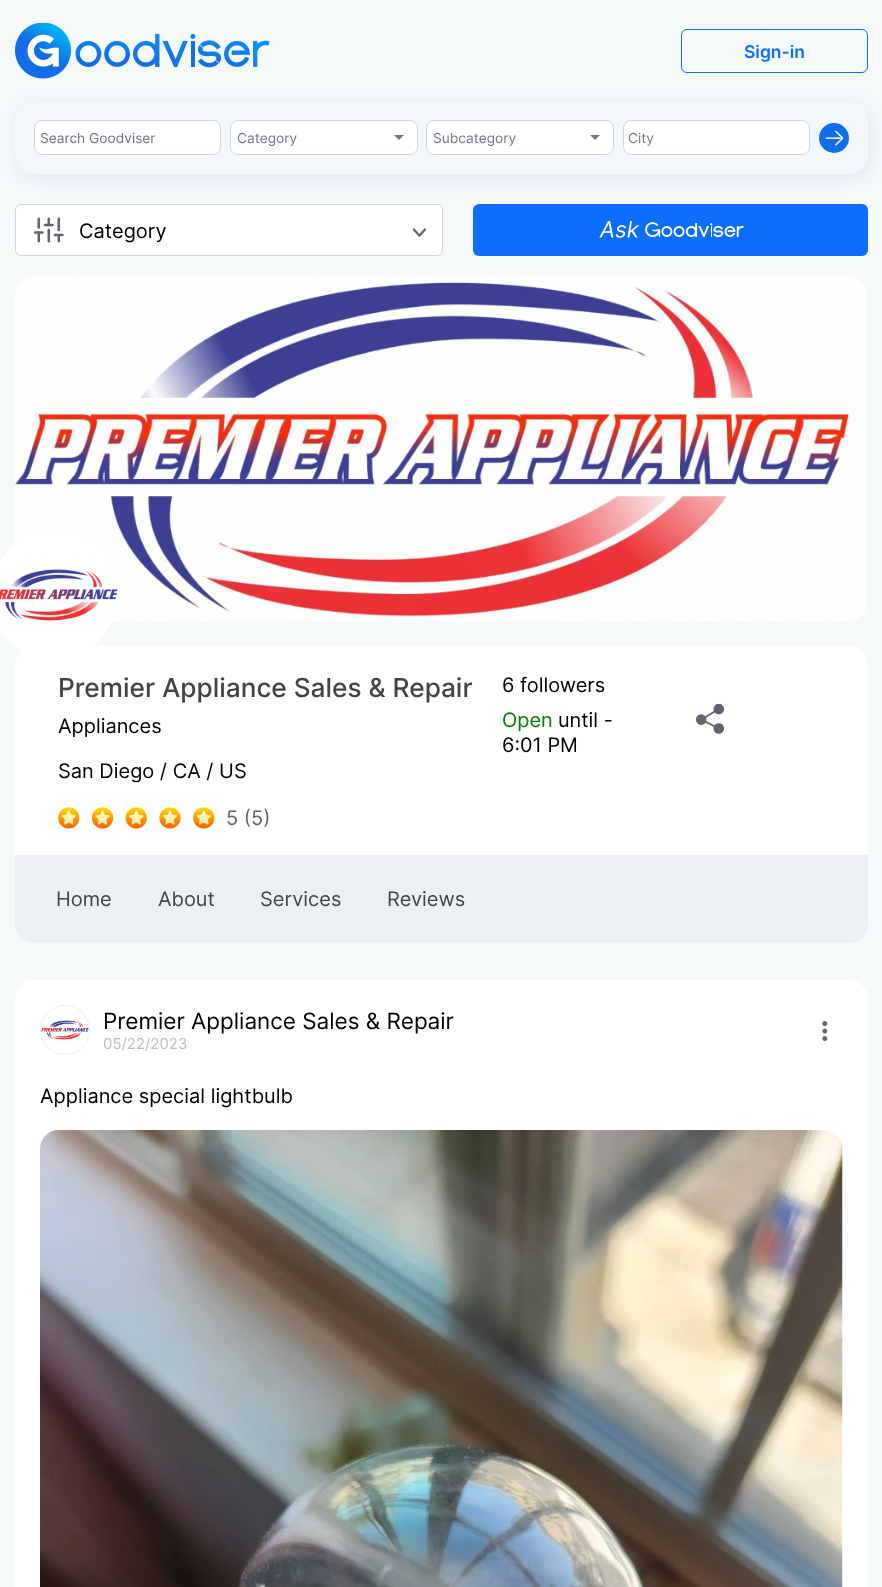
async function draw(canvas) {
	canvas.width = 882;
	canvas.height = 1587;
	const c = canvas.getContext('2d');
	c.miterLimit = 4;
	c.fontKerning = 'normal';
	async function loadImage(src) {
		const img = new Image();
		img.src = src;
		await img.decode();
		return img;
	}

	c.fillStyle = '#f5f9fa';
	c.fillRect(0, 0, 882, 1587);
	c.drawImage(await loadImage('img1.png'), 15, 23, 255, 56);
	c.beginPath();
	c.roundRect(681.5, 29.5, 186, 43, 5.5);
	c.strokeStyle = '#0d6efd';
	c.stroke();
	c.font = '600 17.5px Inter';
	c.fillStyle = '#0d6efd';
	c.fillText('Sign-in', 744, 58);
	c.fillStyle = '#fff';
	c.beginPath();
	c.roundRect(15.5, 204.5, 427, 51, 5.5);
	c.fill();
	c.strokeStyle = '#ced4da';
	c.stroke();
	c.fillStyle = '#0d6efd';
	c.beginPath();
	c.roundRect(473, 204, 395, 52, 6);
	c.fill();
	c.fillStyle = '#7f99d133';
	c.filter = 'blur(9px)';
	c.beginPath();
	c.roundRect(18, 105, 852, 73, 19);
	c.fill();
	c.filter = 'none';
	c.fillStyle = '#f1f7fb';
	c.beginPath();
	c.roundRect(15, 101, 853, 73, 19);
	c.fill();
	c.fillStyle = '#fff';
	c.beginPath();
	c.roundRect(35, 121, 185, 33, 6);
	c.fill();
	c.beginPath();
	c.roundRect(34.5, 120.5, 186, 34, 7.5);
	c.stroke();
	c.font = '13.75px Inter';
	c.fillStyle = '#6c757d';
	c.fillText('Search Goodviser', 40, 143);
	c.fillStyle = '#fff';
	c.beginPath();
	c.roundRect(230.5, 120.5, 187, 34, 7.5);
	c.fill();
	c.stroke();
	c.fillStyle = '#6c7a86';
	c.fillText('Category', 237, 143);
	c.beginPath();
	c.moveTo(394, 135);
	c.lineTo(404, 135);
	c.lineTo(399, 140);
	c.closePath();
	c.fill();
	c.fillStyle = '#fff';
	c.beginPath();
	c.roundRect(426.5, 120.5, 187, 34, 7.5);
	c.fill();
	c.stroke();
	c.fillStyle = '#6c7a86';
	c.fillText('Subcategory', 433, 143);
	c.beginPath();
	c.moveTo(590, 135);
	c.lineTo(600, 135);
	c.lineTo(595, 140);
	c.closePath();
	c.fill();
	c.fillStyle = '#fff';
	c.beginPath();
	c.roundRect(624, 121, 185, 33, 6);
	c.fill();
	c.beginPath();
	c.roundRect(623.5, 120.5, 186, 34, 7.5);
	c.stroke();
	c.fillStyle = '#6c757d';
	c.fillText('City', 628, 143);
	c.fillStyle = '#116dea';
	c.beginPath();
	c.arc(834, 138, 15, 0, 2 * Math.PI);
	c.fill();
	c.drawImage(await loadImage('img2.png'), 825, 130, 19, 16);
	c.drawImage(await loadImage('img3.png'), 33, 217, 31, 26);
	c.font = '20px Inter';
	c.fillStyle = '#000';
	c.fillText('Category', 79, 238);
	c.drawImage(await loadImage('img4.png'), 413, 228, 13, 9);
	c.drawImage(await loadImage('img5.png'), 599, 221, 145, 17);
	c.drawImage(await loadImage('img6.png'), 15, 276, 852, 345);
	c.fillStyle = '#fff';
	c.beginPath();
	c.roundRect(15, 646, 853, 209, [19, 19, 0, 0]);
	c.fill();
	c.beginPath();
	c.arc(54, 595, 64, 0, 2 * Math.PI);
	c.fill();
	c.drawImage(await loadImage('img7.png'), 0, 569, 118, 52);
	c.font = '500 26.25px Inter';
	c.fillStyle = '#444';
	c.fillText('Premier Appliance Sales & Repair', 58, 697);
	c.font = '20px Inter';
	c.fillStyle = '#000';
	c.fillText('Appliances', 58, 733);
	c.fillText('San Diego / CA / US', 58, 778);
	c.drawImage(await loadImage('img8.png'), 58, 807, 22, 22);
	c.drawImage(await loadImage('img9.png'), 91, 807, 23, 22);
	c.drawImage(await loadImage('img10.png'), 125, 807, 22, 22);
	c.drawImage(await loadImage('img11.png'), 159, 807, 22, 22);
	c.drawImage(await loadImage('img8.png'), 193, 807, 22, 22);
	c.fillStyle = '#69606d';
	c.fillText('5 (5)', 226, 825);
	c.fillStyle = '#000';
	c.fillText('6 followers', 502, 692);
	c.fillStyle = '#008000';
	c.fillText('Open', 502, 727);
	c.fillStyle = '#000';
	c.fillText('until -', 558, 727);
	c.fillText('6:01 PM', 502, 752);
	c.drawImage(await loadImage('img12.png'), 695, 704, 30, 30);
	c.fillStyle = '#eaf0f4';
	c.beginPath();
	c.roundRect(15, 855, 853, 88, [0, 0, 19, 19]);
	c.fill();
	c.fillStyle = '#444';
	for (const [text, x, y] of [
		['Home', 56, 906],
		['About', 158, 906],
		['Services', 260, 906],
		['Reviews', 387, 906],
	]) {
		c.fillText(text, x, y);
	}
	c.fillStyle = '#fff';
	c.beginPath();
	c.roundRect(15, 980, 853, 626, 19);
	c.fill();
	c.drawImage(await loadImage('img13.png'), 41, 1020, 48, 20);
	c.beginPath();
	c.arc(65, 1030, 24.5, 0, 2 * Math.PI);
	c.strokeStyle = '#eee';
	c.stroke();
	c.font = '22.5px Inter';
	c.fillStyle = '#000';
	c.fillText('Premier Appliance Sales & Repair', 103, 1029);
	c.font = '15px Inter';
	c.fillStyle = '#bdbdbd';
	c.fillText('05/22/2023', 103, 1049);
	c.drawImage(await loadImage('img14.png'), 822, 1021, 6, 20);
	c.font = '20px Inter';
	c.fillStyle = '#000';
	c.fillText('Appliance special lightbulb', 40, 1103);
	c.drawImage(await loadImage('img15.png'), 40, 1130, 803, 457);
}

draw(document.querySelector('canvas'));
